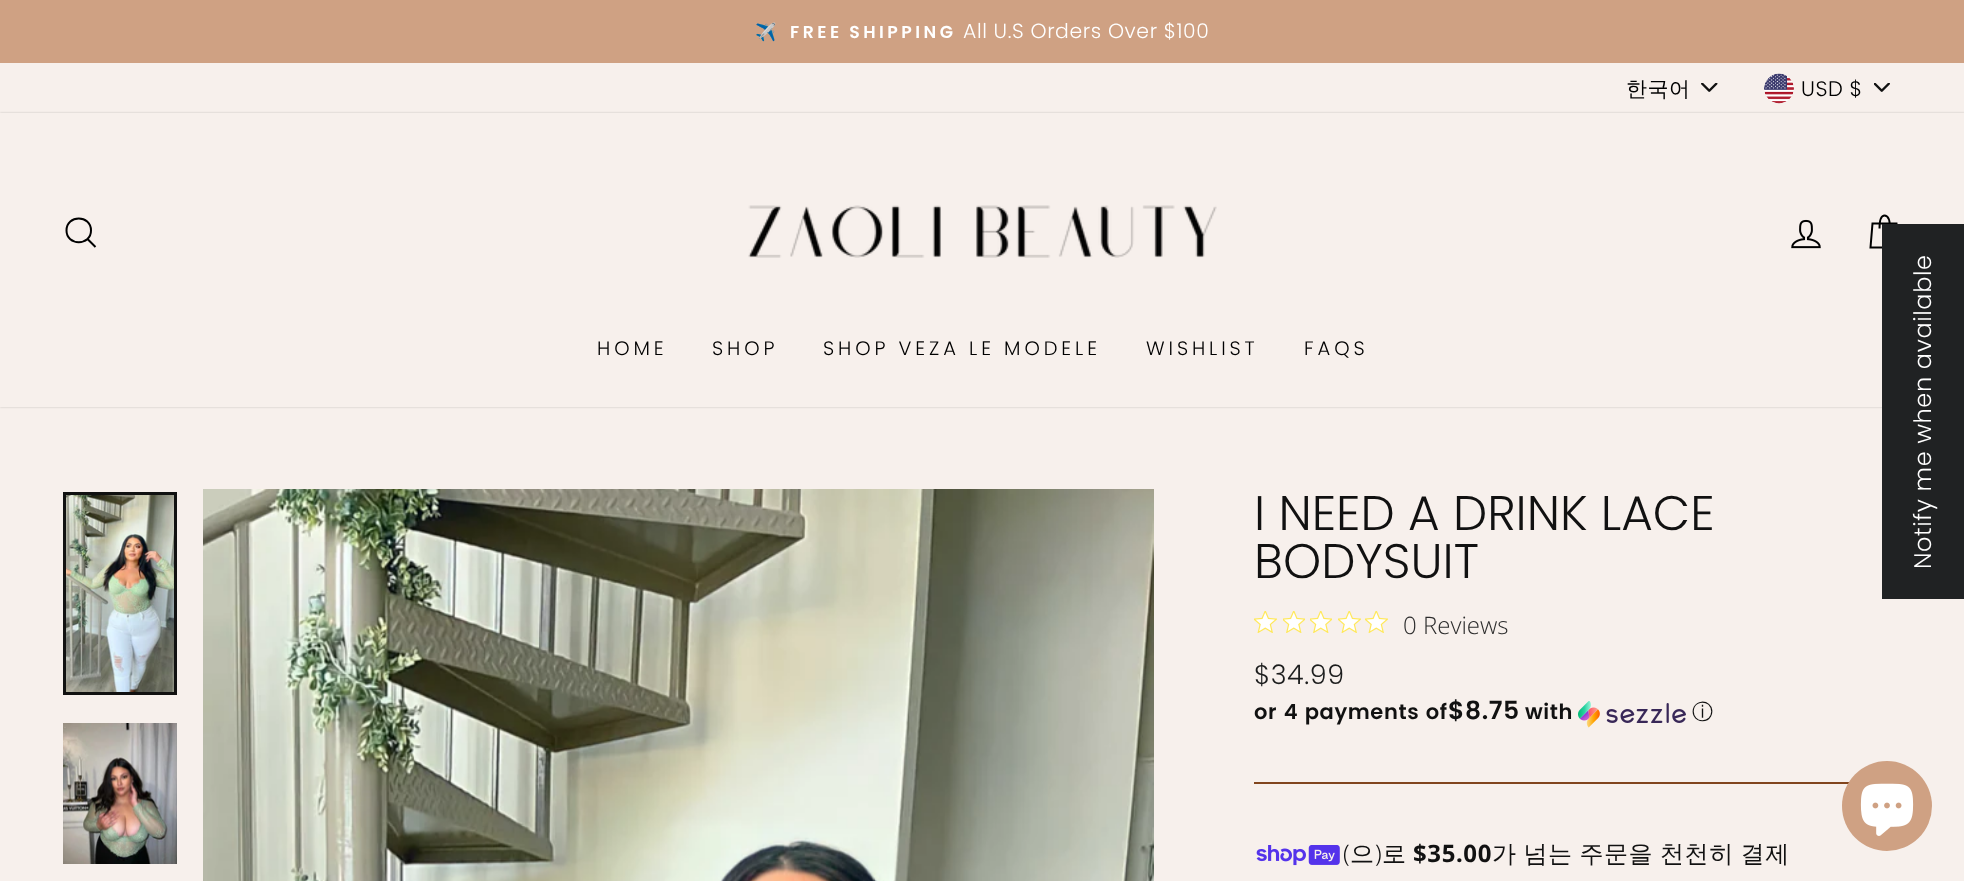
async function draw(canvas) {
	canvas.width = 1964;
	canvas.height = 881;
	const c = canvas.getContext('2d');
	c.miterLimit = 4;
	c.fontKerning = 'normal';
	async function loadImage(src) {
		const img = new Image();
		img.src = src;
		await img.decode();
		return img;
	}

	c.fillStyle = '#f7f0ec';
	c.fillRect(0, 0, 1964, 881);
	c.fillStyle = '#cfa183';
	c.fillRect(0, 0, 1964, 63);
	c.letterSpacing = '3.5px';
	c.font = 'bold 17.25px Noto Color Emoji';
	c.fillStyle = '#fff';
	c.fillText('✈️', 755, 38);
	c.wordSpacing = '-1px';
	c.font = '600 17.25px Poppins';
	c.fillText('FREE SHIPPING', 790, 38);
	c.letterSpacing = '0.6px';
	c.wordSpacing = '0px';
	c.font = '300 20.4px Poppins';
	c.fillText('All U.S Orders Over $100', 963, 38);
	c.drawImage(await loadImage('img1.png'), 1701, 83, 17, 9);
	c.letterSpacing = '0.5px';
	c.font = '500 21px WenQuanYi Zen Hei';
	c.fillStyle = '#000';
	c.fillText('한국어', 1626, 96);
	c.drawImage(await loadImage('img2.png'), 1874, 83, 16, 9);
	c.drawImage(await loadImage('img3.png'), 1764, 73, 30, 31);
	c.font = '300 21px Poppins';
	c.fillText('USD $', 1801, 96);
	c.fillStyle = '#00000033';
	c.filter = 'blur(1px)';
	c.beginPath();
	c.rect(0, 113, 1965, 294);
	c.fill();
	c.filter = 'none';
	c.fillStyle = '#f7f0ec';
	c.fillRect(0, 113, 1964, 294);
	c.beginPath();
	c.moveTo(91, 230.5);
	c.bezierCurveTo(91, 246, 66.5, 246, 66.5, 230.5);
	c.bezierCurveTo(66.5, 214.5, 91, 214.5, 91, 230.5);
	c.closePath();
	c.moveTo(95.5, 247);
	c.lineTo(87.5, 239);
	c.strokeStyle = '#000';
	c.lineWidth = 2;
	c.stroke();
	c.drawImage(await loadImage('img4.png'), 748, 205, 469, 53);
	c.drawImage(await loadImage('img5.png'), 1791, 219, 30, 30);
	c.beginPath();
	c.moveTo(1879.5, 228.5);
	c.bezierCurveTo(1879.5, 218, 1881.5, 215.5, 1884.5, 215.5);
	c.bezierCurveTo(1887.5, 215.5, 1890, 218, 1890, 228.5);
	c.moveTo(1872.5, 223.5);
	c.lineTo(1896.5, 223.5);
	c.lineTo(1899, 247.5);
	c.lineTo(1870.5, 247.5);
	c.closePath();
	c.stroke();
	c.letterSpacing = '3.9px';
	c.font = '300 19.5px Poppins';
	c.fillStyle = '#000';
	for (const [text, x, y] of [
		['HOME', 597, 355],
		['SHOP', 712, 355],
		['SHOP VEZA LE MODELE', 823, 355],
		['WISHLIST', 1146, 355],
		['FAQS', 1304, 355],
	]) {
		c.fillText(text, x, y);
	}
	c.drawImage(await loadImage('img6.png'), 66, 495, 108, 197);
	c.strokeStyle = '#111';
	c.lineWidth = 3;
	c.strokeRect(64.5, 493.5, 111, 200);
	c.drawImage(await loadImage('img7.png'), 63, 723, 114, 141);
	c.drawImage(await loadImage('img8.png'), 203, 489, 951, 392);
	c.letterSpacing = '0px';
	c.font = '300 48.5px Poppins';
	c.fillStyle = '#111';
	c.fillText('I NEED A DRINK LACE', 1254, 530);
	c.fillText('BODYSUIT', 1254, 578);
	c.drawImage(await loadImage('img9.png'), 1254, 611, 23, 22);
	c.drawImage(await loadImage('img10.png'), 1283, 611, 22, 22);
	c.drawImage(await loadImage('img10.png'), 1310, 611, 22, 22);
	c.drawImage(await loadImage('img9.png'), 1338, 611, 23, 22);
	c.drawImage(await loadImage('img9.png'), 1365, 611, 23, 22);
	c.font = '300 24px Open Sans';
	c.fillStyle = '#2c2c2c';
	c.fillText('0 Reviews', 1403, 634);
	c.letterSpacing = '0.6px';
	c.font = '300 27px Poppins';
	c.fillStyle = '#1c1d1d';
	c.fillText('$34.99', 1254, 684);
	c.wordSpacing = '1px';
	c.font = '600 21px Poppins';
	c.fillStyle = '#111';
	c.fillText('or 4 payments of', 1254, 719);
	c.wordSpacing = '0px';
	c.font = '600 25px Poppins';
	c.fillText('$8.75', 1448, 719);
	c.font = '600 21px Poppins';
	c.fillText('with', 1525, 719);
	c.drawImage(await loadImage('img11.png'), 1578, 701, 108, 27);
	c.font = '500 21px WenQuanYi Zen Hei';
	c.fillText('ⓘ', 1692, 719);
	c.fillStyle = '#81451d';
	c.fillRect(1254, 782, 595, 2);
	c.drawImage(await loadImage('img12.png'), 1256, 845, 84, 21);
	c.font = '300 24px Noto Sans';
	c.fillStyle = '#111';
	c.fillText('(', 1343, 862);
	c.font = '500 24px WenQuanYi Zen Hei';
	c.fillText('으', 1350, 862);
	c.font = '300 24px Noto Sans';
	c.fillText(')', 1375, 862);
	c.font = '500 24px WenQuanYi Zen Hei';
	c.fillText('로', 1382, 862);
	c.font = 'bold 24px Noto Sans';
	c.fillText('$35.00', 1413, 862);
	c.wordSpacing = '-1px';
	c.font = '500 24px WenQuanYi Zen Hei';
	c.fillText('가 넘는 주문을 천천히 결제', 1492, 862);
	c.fillStyle = '#202223';
	c.fillRect(1882, 224, 82, 375);
	c.wordSpacing = '0px';
	c.font = '300 24px Poppins';
	c.fillStyle = '#fff';
	c.save();
	c.translate(1931, 569);
	c.rotate(-90 * Math.PI / 180);
	c.fillText('Notify me when available', 0, 0);
	c.restore();
	c.fillStyle = '#cfa183';
	c.beginPath();
	c.arc(1887, 806, 45, 0, 2 * Math.PI);
	c.fill();
	c.drawImage(await loadImage('img13.png'), 1860, 783, 54, 53);
}

draw(document.querySelector('canvas'));
